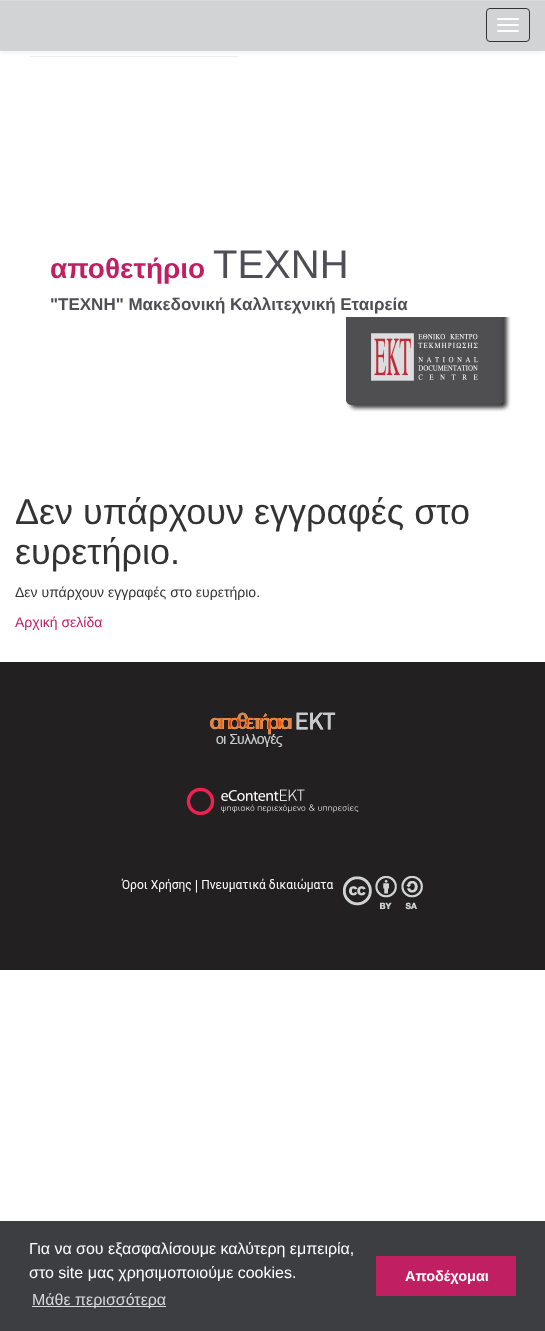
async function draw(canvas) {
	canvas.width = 545;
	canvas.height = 1331;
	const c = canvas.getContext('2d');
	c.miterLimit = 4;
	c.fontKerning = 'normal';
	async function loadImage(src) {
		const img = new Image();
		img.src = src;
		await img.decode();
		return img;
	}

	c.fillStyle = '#fff';
	c.fillRect(0, 0, 545, 1331);
	c.drawImage(await loadImage('img1.png'), 30, 56, 209, 1);
	c.fillStyle = '#00000012';
	c.filter = 'blur(2.5px)';
	c.beginPath();
	c.rect(0, 1, 545, 51);
	c.fill();
	c.filter = 'none';
	c.fillStyle = '#d2d3d5';
	c.fillRect(0, 1, 545, 50);
	c.fillStyle = '#d9dadb';
	c.fillRect(0, 0, 545, 1);
	c.beginPath();
	c.roundRect(486.5, 8.5, 43, 33, 3.5);
	c.strokeStyle = '#333';
	c.stroke();
	c.fillStyle = '#fff';
	c.beginPath();
	c.roundRect(497, 18, 22, 2, 1);
	c.fill();
	c.beginPath();
	c.roundRect(497, 24, 22, 2, 1);
	c.fill();
	c.beginPath();
	c.roundRect(497, 30, 22, 2, 1);
	c.fill();
	c.font = 'bold 28px Liberation Sans';
	c.fillStyle = '#c01f63';
	c.fillText('αποθετήριο', 50, 278);
	c.font = '40px Liberation Sans';
	c.fillStyle = '#4f4e56';
	c.fillText('ΤΕΧΝΗ', 213, 278);
	c.font = 'bold 17px Liberation Sans';
	c.fillText('"ΤΕΧΝΗ" Μακεδονική Καλλιτεχνική Εταιρεία', 50, 310);
	c.drawImage(await loadImage('img2.png'), 346, 317, 165, 95);
	c.font = '36px Liberation Sans';
	c.fillStyle = '#333';
	c.fillText('Δεν υπάρχουν εγγραφές στο', 15, 524);
	c.fillText('ευρετήριο.', 15, 564);
	c.font = '14px Liberation Sans';
	c.fillText('Δεν υπάρχουν εγγραφές στο ευρετήριο.', 15, 597);
	c.fillStyle = '#c01f63';
	c.fillText('Αρχική σελίδα', 15, 627);
	c.drawImage(await loadImage('img3.png'), 0, 662, 545, 308);
	c.fillStyle = '#3d3e42';
	c.fillRect(0, 1221, 545, 110);
	c.font = '16px Liberation Sans';
	c.fillStyle = '#fff';
	c.fillText('Για να σου εξασφαλίσουμε καλύτερη εμπειρία,', 29, 1254);
	c.fillText('στο site μας χρησιμοποιούμε cookies.', 29, 1278);
	c.fillStyle = '#d8d8d9';
	c.fillRect(32, 1306, 134, 1);
	c.fillText('Μάθε περισσότερα', 32, 1305);
	c.fillStyle = '#c01f61';
	c.fillRect(376, 1256, 140, 40);
	c.font = 'bold 14.5px Liberation Sans';
	c.fillStyle = '#fff';
	c.fillText('Αποδέχομαι', 405, 1281);
}

draw(document.querySelector('canvas'));
